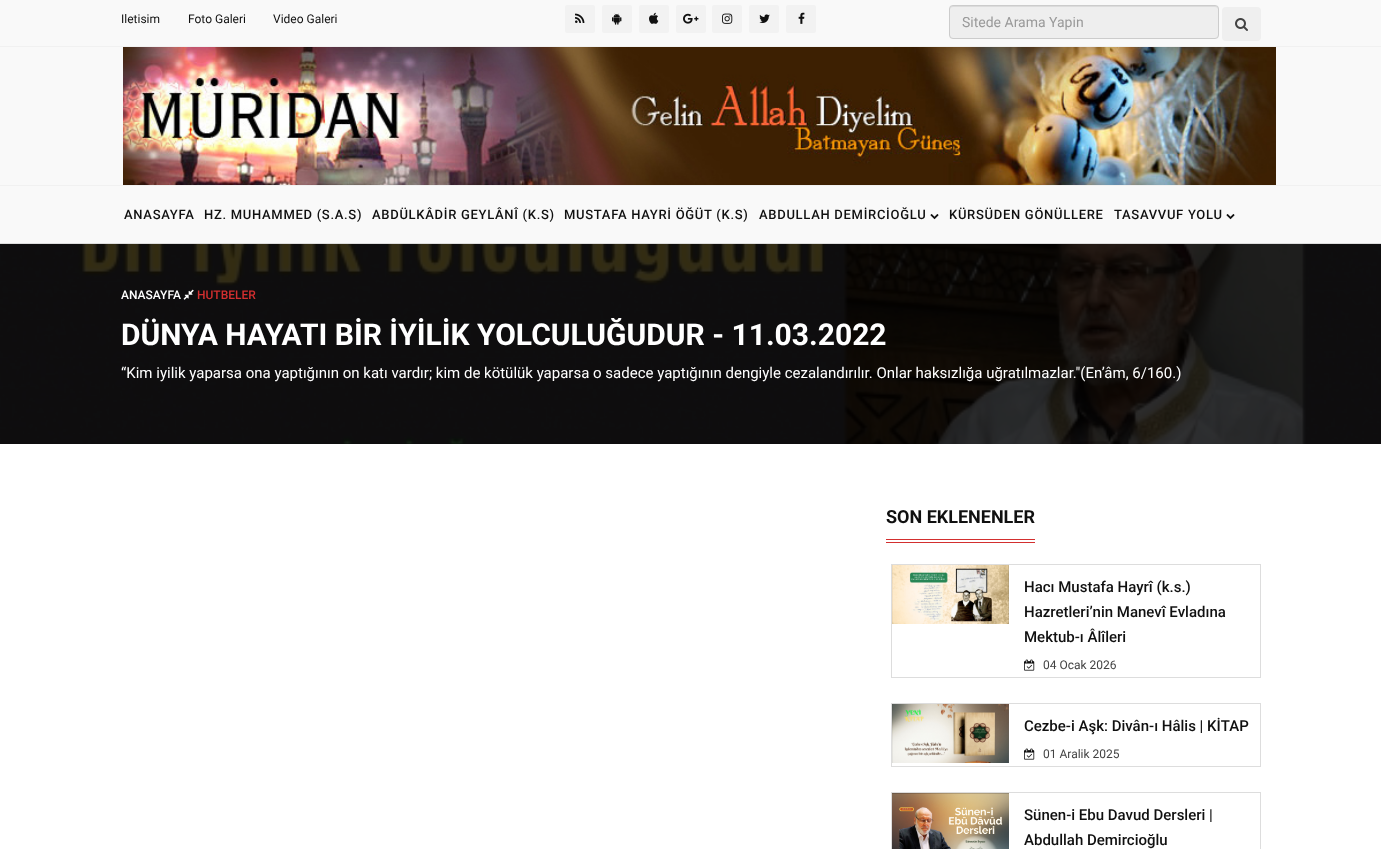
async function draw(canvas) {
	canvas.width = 1381;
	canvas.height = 849;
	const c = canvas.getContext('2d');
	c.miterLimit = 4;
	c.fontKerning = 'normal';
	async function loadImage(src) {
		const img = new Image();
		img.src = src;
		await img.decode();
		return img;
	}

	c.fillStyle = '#fff';
	c.fillRect(0, 0, 1381, 849);
	c.fillStyle = '#f9f9f9';
	c.fillRect(0, 0, 1381, 46);
	c.fillStyle = '#f1f1f1';
	c.fillRect(0, 46, 1381, 1);
	c.font = '12px Roboto';
	c.fillStyle = '#101010';
	for (const [text, x, y] of [
		['Iletisim', 121, 23],
		['Foto Galeri', 188, 23],
		['Video Galeri', 273, 23],
	]) {
		c.fillText(text, x, y);
	}
	c.fillStyle = '#f2f2f2';
	c.beginPath();
	c.roundRect(565, 5, 30, 28, 2);
	c.fill();
	c.drawImage(await loadImage('img1.png'), 575, 13, 10, 10);
	c.beginPath();
	c.roundRect(602, 5, 30, 28, 2);
	c.fill();
	c.drawImage(await loadImage('img2.png'), 612, 13, 10, 12);
	c.beginPath();
	c.roundRect(639, 5, 30, 28, 2);
	c.fill();
	c.drawImage(await loadImage('img3.png'), 649, 12, 10, 12);
	c.beginPath();
	c.roundRect(676, 5, 30, 28, 2);
	c.fill();
	c.drawImage(await loadImage('img4.png'), 683, 13, 16, 11);
	c.beginPath();
	c.roundRect(712, 5, 30, 28, 2);
	c.fill();
	c.drawImage(await loadImage('img5.png'), 722, 13, 11, 11);
	c.beginPath();
	c.roundRect(749, 5, 30, 28, 2);
	c.fill();
	c.drawImage(await loadImage('img6.png'), 759, 14, 11, 9);
	c.beginPath();
	c.roundRect(786, 5, 30, 28, 2);
	c.fill();
	c.drawImage(await loadImage('img7.png'), 798, 12, 7, 12);
	c.fillStyle = '#eee';
	c.beginPath();
	c.roundRect(949, 5, 270, 34, 4);
	c.fill();
	c.fillStyle = '#dcdcdc';
	c.beginPath();
	c.moveTo(953, 7);
	c.lineTo(1215, 7);
	c.bezierCurveTo(1217, 7, 1218, 8, 1218, 10);
	c.bezierCurveTo(1218, 8, 1217, 6, 1215, 6);
	c.lineTo(953, 6);
	c.bezierCurveTo(951, 6, 950, 8, 950, 10);
	c.bezierCurveTo(950, 8, 951, 7, 953, 7);
	c.closePath();
	c.fill();
	c.beginPath();
	c.roundRect(949.5, 5.5, 269, 33, 3.5);
	c.strokeStyle = '#ccc';
	c.stroke();
	c.font = '14px Roboto';
	c.fillStyle = '#999';
	c.fillText('Sitede Arama Yapin', 962, 27);
	c.fillStyle = '#efefef';
	c.beginPath();
	c.roundRect(1222, 7, 39, 34, 4);
	c.fill();
	c.drawImage(await loadImage('img8.png'), 1235, 18, 13, 13);
	c.fillStyle = '#f9f9f9';
	c.fillRect(0, 47, 1381, 138);
	c.drawImage(await loadImage('img9.png'), 123, 47, 1153, 138);
	for (const [x, y, w, h, color] of [
		[0, 186, 1381, 57, '#f9f9f9'],
		[0, 185, 1381, 1, '#f1f1f1'],
		[0, 243, 1381, 1, '#ddd'],
	]) {
		c.fillStyle = color;
		c.fillRect(x, y, w, h);
	}
	c.letterSpacing = '0.7px';
	c.font = '500 13px Roboto';
	c.fillStyle = '#101010';
	for (const [text, x, y] of [
		['ANASAYFA', 124, 219],
		['HZ. MUHAMMED (S.A.S)', 204, 219],
		['ABDÜLKÂDİR GEYLÂNÎ (K.S)', 372, 219],
		['MUSTAFA HAYRİ ÖĞÜT (K.S)', 564, 219],
		['ABDULLAH DEMİRCİOĞLU', 759, 219],
	]) {
		c.fillText(text, x, y);
	}
	c.drawImage(await loadImage('img10.png'), 930, 214, 9, 6);
	c.fillText('KÜRSÜDEN GÖNÜLLERE', 949, 219);
	c.fillText('TASAVVUF YOLU', 1114, 219);
	c.drawImage(await loadImage('img10.png'), 1226, 214, 9, 6);
	c.drawImage(await loadImage('img11.png'), 0, 244, 1381, 200);
	c.letterSpacing = '0px';
	c.font = '500 12px Roboto';
	c.fillStyle = '#fff';
	c.fillText('ANASAYFA', 121, 299);
	c.drawImage(await loadImage('img12.png'), 183, 289, 11, 11);
	c.fillStyle = '#d32f2f';
	c.fillText('HUTBELER', 197, 299);
	c.font = 'bold 30px Roboto';
	c.fillStyle = '#fff';
	c.fillText('DÜNYA HAYATI BİR İYİLİK YOLCULUĞUDUR - 11.03.2022', 121, 345);
	c.font = '15px Roboto';
	c.fillText('“Kim iyilik yaparsa ona yaptığının on katı vardır; kim de kötülük yaparsa o sadece yaptığının dengiyle cezalandırılır. Onlar haksızlığa uğratılmazlar."(En’âm, 6/160.)', 121, 378);
	c.font = 'bold 18px Roboto';
	c.fillStyle = '#101010';
	c.fillText('SON EKLENENLER', 886, 523);
	c.fillStyle = '#d32f2f';
	c.fillRect(886, 539, 149, 1);
	c.fillRect(886, 542, 149, 1);
	c.strokeStyle = '#ddd';
	c.strokeRect(891.5, 564.5, 369, 113);
	c.drawImage(await loadImage('img13.png'), 892, 565, 117, 59);
	c.font = '500 15px Roboto';
	c.fillStyle = '#101010';
	for (const [text, x, y] of [
		['Hacı Mustafa Hayrî (k.s.)', 1024, 592],
		['Hazretleri’nin Manevî Evladına', 1024, 617],
		['Mektub-ı Âlîleri', 1024, 642],
	]) {
		c.fillText(text, x, y);
	}
	c.drawImage(await loadImage('img14.png'), 1024, 659, 11, 12);
	c.font = '12px Roboto';
	c.fillStyle = '#434343';
	c.fillText('04 Ocak 2026', 1043, 669);
	c.strokeRect(891.5, 703.5, 369, 63);
	c.drawImage(await loadImage('img15.png'), 892, 704, 117, 59);
	c.font = '500 15px Roboto';
	c.fillStyle = '#101010';
	c.fillText('Cezbe-i Aşk: Divân-ı Hâlis | KİTAP', 1024, 731);
	c.drawImage(await loadImage('img14.png'), 1024, 748, 11, 12);
	c.font = '12px Roboto';
	c.fillStyle = '#434343';
	c.fillText('01 Aralik 2025', 1043, 758);
	c.strokeRect(891.5, 792.5, 369, 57);
	c.drawImage(await loadImage('img16.png'), 892, 793, 117, 56);
	c.font = '500 15px Roboto';
	c.fillStyle = '#101010';
	c.fillText('Sünen-i Ebu Davud Dersleri |', 1024, 820);
	c.fillText('Abdullah Demircioğlu', 1024, 845);
}

draw(document.querySelector('canvas'));
